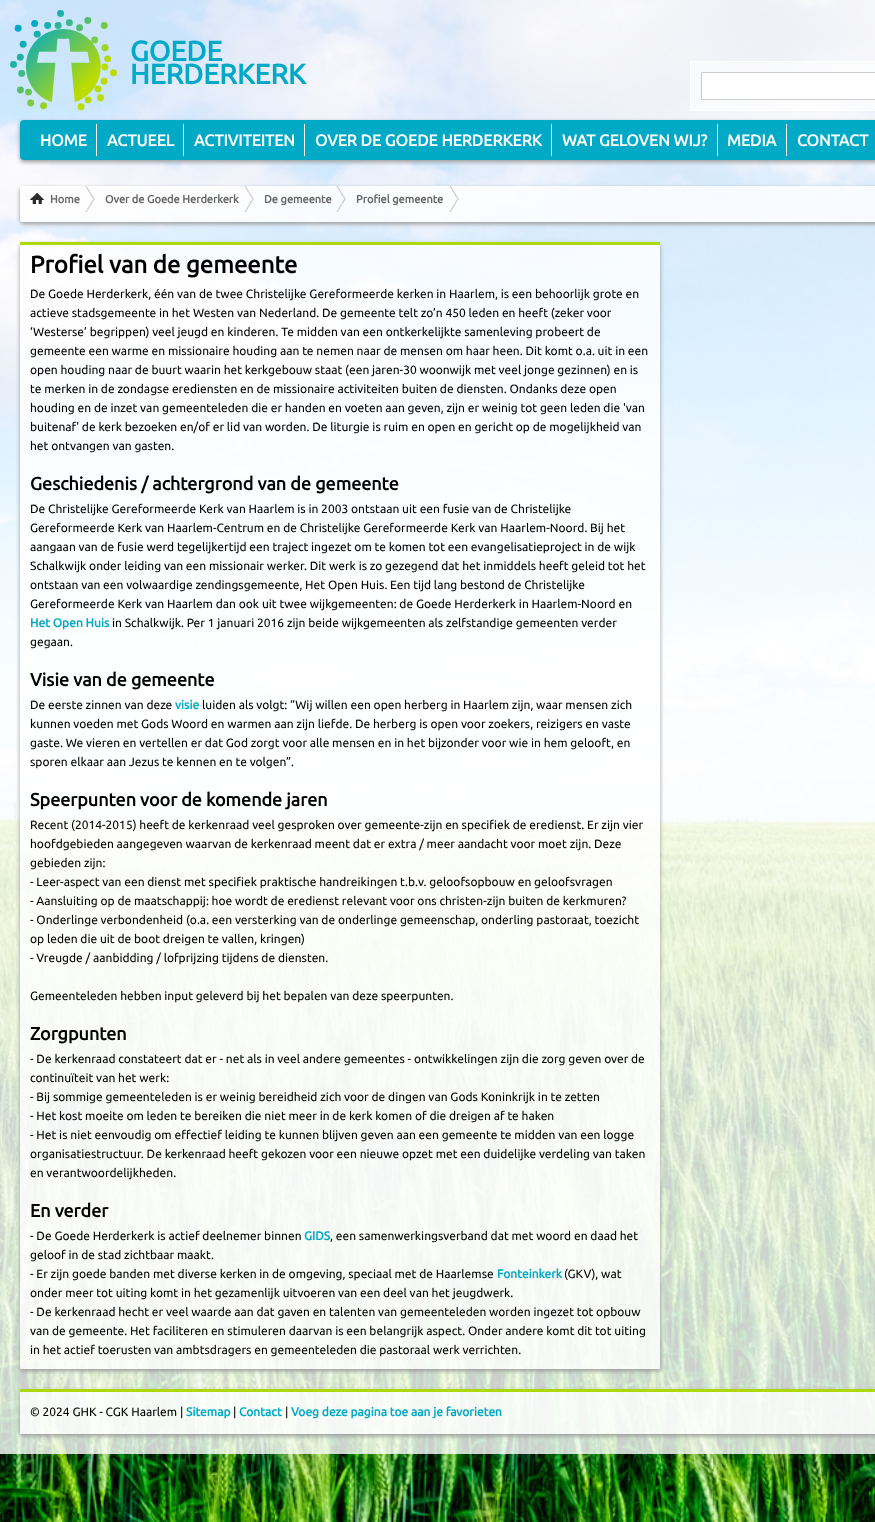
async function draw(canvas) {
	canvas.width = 875;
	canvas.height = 1522;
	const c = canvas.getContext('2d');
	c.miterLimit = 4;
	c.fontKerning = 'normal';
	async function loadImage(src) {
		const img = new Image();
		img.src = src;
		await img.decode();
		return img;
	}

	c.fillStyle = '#fff';
	c.fillRect(0, 0, 875, 1522);
	c.drawImage(await loadImage('img1.png'), 0, 0, 875, 1522);
	c.drawImage(await loadImage('img2.png'), 10, 10, 107, 101);
	c.font = 'bold 28px Ubuntu';
	c.fillStyle = '#00a9c5';
	c.fillText('GOEDE', 130, 61);
	c.fillText('HERDERKERK', 130, 84);
	c.fillStyle = '#ffffff99';
	c.fillRect(690, 62, 185, 49);
	c.beginPath();
	c.moveTo(690.5, 61.5);
	c.lineTo(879.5, 61.5);
	c.lineTo(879.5, 107);
	c.bezierCurveTo(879.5, 109, 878, 110.5, 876, 110.5);
	c.lineTo(694, 110.5);
	c.bezierCurveTo(692, 110.5, 690.5, 109, 690.5, 107);
	c.closePath();
	c.strokeStyle = '#fff';
	c.stroke();
	c.fillStyle = '#fff';
	c.beginPath();
	c.rect(701.5, 72.5, 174, 27);
	c.fill();
	c.strokeStyle = '#ccc';
	c.stroke();
	c.fillStyle = '#999';
	c.filter = 'blur(2px)';
	c.beginPath();
	c.roundRect(20, 122, 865, 40, 4);
	c.fill();
	c.filter = 'none';
	c.fillStyle = '#00a9c5';
	c.beginPath();
	c.roundRect(20, 120, 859, 40, 4);
	c.fill();
	c.fillStyle = '#fff';
	c.fillRect(96, 124, 1, 32);
	c.font = 'bold 16px Ubuntu';
	c.fillText('HOME', 40, 146);
	c.fillRect(183, 124, 1, 32);
	c.fillText('ACTUEEL', 107, 146);
	c.fillRect(304, 124, 1, 32);
	c.fillText('ACTIVITEITEN', 194, 146);
	c.fillRect(551, 124, 1, 32);
	c.fillText('OVER DE GOEDE HERDERKERK', 315, 146);
	c.fillRect(717, 124, 1, 32);
	c.fillText('WAT GELOVEN WIJ?', 562, 146);
	c.fillRect(786, 124, 1, 32);
	c.fillText('MEDIA', 727, 146);
	c.fillText('CONTACT', 797, 146);
	c.save();
	c.beginPath();
	c.moveTo(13, 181);
	c.lineTo(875, 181);
	c.lineTo(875, 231);
	c.lineTo(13, 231);
	c.closePath();
	c.moveTo(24, 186);
	c.lineTo(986, 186);
	c.bezierCurveTo(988, 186, 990, 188, 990, 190);
	c.lineTo(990, 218);
	c.bezierCurveTo(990, 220, 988, 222, 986, 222);
	c.lineTo(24, 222);
	c.bezierCurveTo(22, 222, 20, 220, 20, 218);
	c.lineTo(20, 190);
	c.bezierCurveTo(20, 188, 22, 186, 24, 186);
	c.closePath();
	c.clip('evenodd');
	c.fillStyle = '#999';
	c.filter = 'blur(2px)';
	c.beginPath();
	c.roundRect(20, 188, 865, 36, 4);
	c.fill();
	c.filter = 'none';
	c.restore();
	c.fillStyle = '#ffffffcc';
	c.fillRect(20, 186, 855, 36);
	c.drawImage(await loadImage('img3.png'), 85, 186, 10, 26);
	c.drawImage(await loadImage('img4.png'), 30, 193, 14, 11);
	c.font = 'bold 11px Ubuntu';
	c.fillStyle = '#666';
	c.fillText('Home', 50, 203);
	c.drawImage(await loadImage('img5.png'), 244, 186, 10, 26);
	c.fillText('Over de Goede Herderkerk', 105, 203);
	c.drawImage(await loadImage('img6.png'), 336, 186, 10, 26);
	c.fillText('De gemeente', 264, 203);
	c.drawImage(await loadImage('img7.png'), 449, 186, 10, 26);
	c.fillText('Profiel gemeente', 356, 203);
	c.save();
	c.beginPath();
	c.moveTo(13, 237);
	c.lineTo(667, 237);
	c.lineTo(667, 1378);
	c.lineTo(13, 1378);
	c.closePath();
	c.moveTo(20, 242);
	c.lineTo(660, 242);
	c.lineTo(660, 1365);
	c.bezierCurveTo(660, 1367, 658, 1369, 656, 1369);
	c.lineTo(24, 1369);
	c.bezierCurveTo(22, 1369, 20, 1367, 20, 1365);
	c.closePath();
	c.clip('evenodd');
	c.fillStyle = '#999';
	c.filter = 'blur(2px)';
	c.beginPath();
	c.roundRect(20, 244, 640, 1127, 4);
	c.fill();
	c.filter = 'none';
	c.restore();
	c.fillStyle = '#ffffffcc';
	c.fillRect(20, 245, 640, 1124);
	c.fillStyle = '#add80e';
	c.fillRect(20, 242, 640, 3);
	c.font = 'bold 24px Ubuntu';
	c.fillStyle = '#000';
	c.fillText('Profiel van de gemeente', 30, 273);
	c.font = '12px Ubuntu';
	for (const [text, x, y] of [
		['De Goede Herderkerk, één van de twee Christelijke Gereformeerde kerken in Haarlem, is een behoorlijk grote en', 30, 298],
		['actieve stadsgemeente in het Westen van Nederland. De gemeente telt zo’n 450 leden en heeft (zeker voor', 30, 317],
		['‘Westerse’ begrippen) veel jeugd en kinderen. Te midden van een ontkerkelijkte samenleving probeert de', 30, 336],
		['gemeente een warme en missionaire houding aan te nemen naar de mensen om haar heen. Dit komt o.a. uit in een', 30, 355],
		['open houding naar de buurt waarin het kerkgebouw staat (een jaren-30 woonwijk met veel jonge gezinnen) en is', 30, 374],
		['te merken in de zondagse erediensten en de missionaire activiteiten buiten de diensten. Ondanks deze open', 30, 393],
		['houding en de inzet van gemeenteleden die er handen en voeten aan geven, zijn er weinig tot geen leden die \'van', 30, 412],
		['buitenaf\' de kerk bezoeken en/of er lid van worden. De liturgie is ruim en open en gericht op de mogelijkheid van', 30, 431],
		['het ontvangen van gasten.', 30, 450],
	]) {
		c.fillText(text, x, y);
	}
	c.font = 'bold 18px Ubuntu';
	c.fillText('Geschiedenis / achtergrond van de gemeente', 30, 490);
	c.font = '12px Ubuntu';
	for (const [text, x, y] of [
		['De Christelijke Gereformeerde Kerk van Haarlem is in 2003 ontstaan uit een fusie van de Christelijke', 30, 513],
		['Gereformeerde Kerk van Haarlem-Centrum en de Christelijke Gereformeerde Kerk van Haarlem-Noord. Bij het', 30, 532],
		['aangaan van de fusie werd tegelijkertijd een traject ingezet om te komen tot een evangelisatieproject in de wijk', 30, 551],
		['Schalkwijk onder leiding van een missionair werker. Dit werk is zo gezegend dat het inmiddels heeft geleid tot het', 30, 570],
		['ontstaan van een volwaardige zendingsgemeente, Het Open Huis. Een tijd lang bestond de Christelijke', 30, 589],
		['Gereformeerde Kerk van Haarlem dan ook uit twee wijkgemeenten: de Goede Herderkerk in Haarlem-Noord en', 30, 608],
	]) {
		c.fillText(text, x, y);
	}
	c.font = 'bold 12px Ubuntu';
	c.fillStyle = '#00a9c5';
	c.fillText('Het Open Huis', 30, 627);
	c.font = '12px Ubuntu';
	c.fillStyle = '#000';
	c.fillText('in Schalkwijk. Per 1 januari 2016 zijn beide wijkgemeenten als zelfstandige gemeenten verder', 112, 627);
	c.fillText('gegaan.', 30, 646);
	c.font = 'bold 18px Ubuntu';
	c.fillText('Visie van de gemeente', 30, 686);
	c.font = '12px Ubuntu';
	c.fillText('De eerste zinnen van deze', 30, 709);
	c.font = 'bold 12px Ubuntu';
	c.fillStyle = '#00a9c5';
	c.fillText('visie', 175, 709);
	c.font = '12px Ubuntu';
	c.fillStyle = '#000';
	for (const [text, x, y] of [
		['luiden als volgt: “Wij willen een open herberg in Haarlem zijn, waar mensen zich', 202, 709],
		['kunnen voeden met Gods Woord en warmen aan zijn liefde. De herberg is open voor zoekers, reizigers en vaste', 30, 728],
		['gaste. We vieren en vertellen er dat God zorgt voor alle mensen en in het bijzonder voor wie in hem gelooft, en', 30, 747],
		['sporen elkaar aan Jezus te kennen en te volgen”.', 30, 766],
	]) {
		c.fillText(text, x, y);
	}
	c.font = 'bold 18px Ubuntu';
	c.fillText('Speerpunten voor de komende jaren', 30, 806);
	c.font = '12px Ubuntu';
	for (const [text, x, y] of [
		['Recent (2014-2015) heeft de kerkenraad veel gesproken over gemeente-zijn en specifiek de eredienst. Er zijn vier', 30, 829],
		['hoofdgebieden aangegeven waarvan de kerkenraad meent dat er extra / meer aandacht voor moet zijn. Deze', 30, 848],
		['gebieden zijn:', 30, 867],
		['- Leer-aspect van een dienst met specifiek praktische handreikingen t.b.v. geloofsopbouw en geloofsvragen', 30, 886],
		['- Aansluiting op de maatschappij: hoe wordt de eredienst relevant voor ons christen-zijn buiten de kerkmuren?', 30, 905],
		['- Onderlinge verbondenheid (o.a. een versterking van de onderlinge gemeenschap, onderling pastoraat, toezicht', 30, 924],
		['op leden die uit de boot dreigen te vallen, kringen)', 30, 943],
		['- Vreugde / aanbidding / lofprijzing tijdens de diensten.', 30, 962],
		['Gemeenteleden hebben input geleverd bij het bepalen van deze speerpunten.', 30, 1000],
	]) {
		c.fillText(text, x, y);
	}
	c.font = 'bold 18px Ubuntu';
	c.fillText('Zorgpunten', 30, 1040);
	c.font = '12px Ubuntu';
	for (const [text, x, y] of [
		['- De kerkenraad constateert dat er - net als in veel andere gemeentes - ontwikkelingen zijn die zorg geven over de', 30, 1063],
		['continuïteit van het werk:', 30, 1082],
		['- Bij sommige gemeenteleden is er weinig bereidheid zich voor de dingen van Gods Koninkrijk in te zetten', 30, 1101],
		['- Het kost moeite om leden te bereiken die niet meer in de kerk komen of die dreigen af te haken', 30, 1120],
		['- Het is niet eenvoudig om effectief leiding te kunnen blijven geven aan een gemeente te midden van een logge', 30, 1139],
		['organisatiestructuur. De kerkenraad heeft gekozen voor een nieuwe opzet met een duidelijke verdeling van taken', 30, 1158],
		['en verantwoordelijkheden.', 30, 1177],
	]) {
		c.fillText(text, x, y);
	}
	c.font = 'bold 18px Ubuntu';
	c.fillText('En verder', 30, 1217);
	c.font = '12px Ubuntu';
	c.fillText('- De Goede Herderkerk is actief deelnemer binnen', 30, 1240);
	c.font = 'bold 12px Ubuntu';
	c.fillStyle = '#00a9c5';
	c.fillText('GIDS', 304, 1240);
	c.font = '12px Ubuntu';
	c.fillStyle = '#000';
	for (const [text, x, y] of [
		[', een samenwerkingsverband dat met woord en daad het', 330, 1240],
		['geloof in de stad zichtbaar maakt.', 30, 1259],
		['- Er zijn goede banden met diverse kerken in de omgeving, speciaal met de Haarlemse', 30, 1278],
	]) {
		c.fillText(text, x, y);
	}
	c.font = 'bold 12px Ubuntu';
	c.fillStyle = '#00a9c5';
	c.fillText('Fonteinkerk', 497, 1278);
	c.font = '12px Ubuntu';
	c.fillStyle = '#000';
	for (const [text, x, y] of [
		['(GKV), wat', 564, 1278],
		['onder meer tot uiting komt in het gezamenlijk uitvoeren van een deel van het jeugdwerk.', 30, 1297],
		['- De kerkenraad hecht er veel waarde aan dat gaven en talenten van gemeenteleden worden ingezet tot opbouw', 30, 1316],
		['van de gemeente. Het faciliteren en stimuleren daarvan is een belangrijk aspect. Onder andere komt dit tot uiting', 30, 1335],
		['in het actief toerusten van ambtsdragers en gemeenteleden die pastoraal werk verrichten.', 30, 1354],
	]) {
		c.fillText(text, x, y);
	}
	c.save();
	c.beginPath();
	c.moveTo(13, 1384);
	c.lineTo(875, 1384);
	c.lineTo(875, 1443);
	c.lineTo(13, 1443);
	c.closePath();
	c.moveTo(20, 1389);
	c.lineTo(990, 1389);
	c.lineTo(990, 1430);
	c.bezierCurveTo(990, 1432, 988, 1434, 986, 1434);
	c.lineTo(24, 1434);
	c.bezierCurveTo(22, 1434, 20, 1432, 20, 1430);
	c.closePath();
	c.clip('evenodd');
	c.fillStyle = '#999';
	c.filter = 'blur(2px)';
	c.beginPath();
	c.roundRect(20, 1391, 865, 45, 4);
	c.fill();
	c.filter = 'none';
	c.restore();
	c.fillStyle = '#ffffffcc';
	c.fillRect(20, 1392, 855, 42);
	c.fillStyle = '#add80e';
	c.fillRect(20, 1389, 855, 3);
	c.fillStyle = '#000';
	c.fillText('© 2024 GHK - CGK Haarlem |', 30, 1416);
	c.font = 'bold 12px Ubuntu';
	c.fillStyle = '#00a9c5';
	c.fillText('Sitemap', 186, 1416);
	c.font = '12px Ubuntu';
	c.fillStyle = '#000';
	c.fillText('|', 233, 1416);
	c.font = 'bold 12px Ubuntu';
	c.fillStyle = '#00a9c5';
	c.fillText('Contact', 239, 1416);
	c.font = '12px Ubuntu';
	c.fillStyle = '#000';
	c.fillText('|', 285, 1416);
	c.font = 'bold 12px Ubuntu';
	c.fillStyle = '#00a9c5';
	c.fillText('Voeg deze pagina toe aan je favorieten', 291, 1416);
}

draw(document.querySelector('canvas'));
